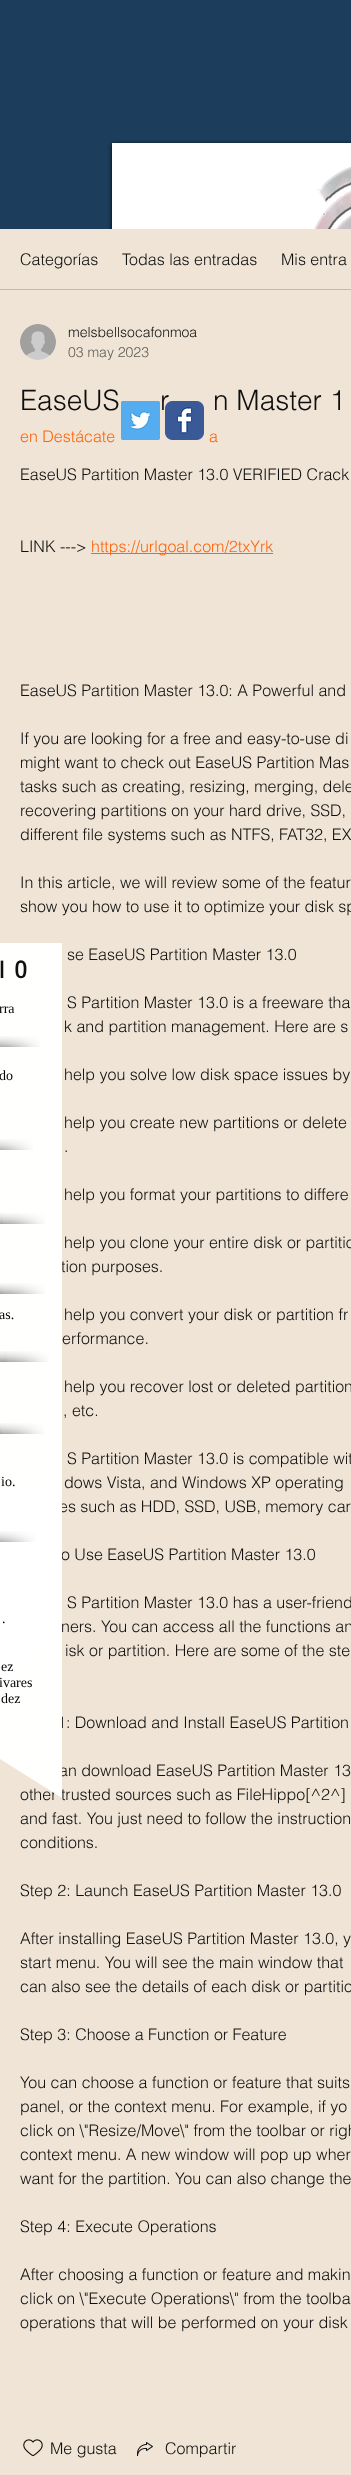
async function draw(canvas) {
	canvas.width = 351;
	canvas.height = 2475;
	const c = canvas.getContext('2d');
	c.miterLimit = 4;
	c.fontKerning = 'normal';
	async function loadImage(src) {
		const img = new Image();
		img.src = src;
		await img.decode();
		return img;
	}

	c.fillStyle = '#1c3e5c';
	c.fillRect(0, 0, 351, 2475);
	c.fillStyle = '#000';
	c.filter = 'blur(2px)';
	c.beginPath();
	c.rect(112, 144, 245, 305);
	c.fill();
	c.filter = 'none';
	c.fillStyle = '#fff';
	c.fillRect(112, 143, 239, 86);
	c.drawImage(await loadImage('img1.png'), 314, 166, 37, 63);
	c.fillStyle = '#efe4d5';
	c.fillRect(0, 229, 351, 2246);
	c.drawImage(await loadImage('img2.png'), 121, 401, 39, 39);
	c.font = '300 28px helvetica';
	c.fillStyle = '#0f0f0f';
	c.fillText('r', 160, 410);
	c.drawImage(await loadImage('img3.png'), 165, 401, 39, 39);
	c.font = '300 16px helvetica';
	c.fillText('tion purposes.', 61, 1272);
	c.fillStyle = '#fffffffa';
	c.fillRect(0, 943, 62, 540);
	c.letterSpacing = '10px';
	c.font = 'bold 25px "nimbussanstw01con"';
	c.fillStyle = '#0f0f0f';
	c.fillText('IO', -1, 978);
	c.letterSpacing = '0px';
	c.font = '14px Liberation Serif';
	c.fillStyle = '#000';
	c.fillText('rra', -1, 1013);
	c.fillText('do', -1, 1080);
	c.drawImage(await loadImage('img4.png'), 0, 1036, 40, 11);
	c.drawImage(await loadImage('img5.png'), 0, 1139, 33, 11);
	c.drawImage(await loadImage('img6.png'), 0, 1213, 3, 11);
	c.drawImage(await loadImage('img7.png'), 3, 1213, 42, 11);
	c.drawImage(await loadImage('img6.png'), 0, 1283, 3, 11);
	c.drawImage(await loadImage('img7.png'), 3, 1283, 42, 11);
	c.fillText('as.', -1, 1319);
	c.drawImage(await loadImage('img8.png'), 0, 1351, 7, 11);
	c.drawImage(await loadImage('img7.png'), 7, 1351, 42, 11);
	c.drawImage(await loadImage('img9.png'), 0, 1423, 2, 11);
	c.drawImage(await loadImage('img7.png'), 2, 1423, 42, 11);
	c.font = '300 16px helvetica';
	c.fillStyle = '#0f0f0f';
	c.fillText('es such as HDD, SSD, USB, memory car', 59, 1512);
	c.fillText('o Use EaseUS Partition Master 13.0', 61, 1560);
	c.save();
	c.beginPath();
	c.rect(0, 1370, 62, 428);
	c.clip();
	c.fillStyle = '#fffffffa';
	c.beginPath();
	c.moveTo(-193, 1798);
	c.lineTo(-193, 1483);
	c.lineTo(307, 1483);
	c.closePath();
	c.fill();
	c.restore();
	for (const [text, x, y] of [
		['1: Download and Install EaseUS Partition', 57, 1728],
		['an download EaseUS Partition Master 13', 59, 1776],
		['other trusted sources such as FileHippo[^2^]', 20, 1800],
	]) {
		c.fillText(text, x, y);
	}
	c.fillStyle = '#fffffffa';
	c.beginPath();
	c.moveTo(62, 1483);
	c.lineTo(62, 1798);
	c.lineTo(-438, 1483);
	c.closePath();
	c.fill();
	c.font = '14px Liberation Serif';
	c.fillStyle = '#000';
	c.fillText('io.', 1, 1486);
	c.drawImage(await loadImage('img10.png'), 0, 1531, 35, 11);
	for (const [text, x, y] of [
		['.', 2, 1623],
		['ez', 1, 1671],
		['ivares', -1, 1687],
		['dez', 1, 1703],
	]) {
		c.fillText(text, x, y);
	}
	c.fillStyle = '#c2b9ad';
	c.fillRect(0, 289, 351, 1);
	c.font = '300 16px helvetica';
	c.fillStyle = '#0f0f0f';
	for (const [text, x, y] of [
		['Categorías', 20, 265],
		['Todas las entradas', 122, 265],
		['Mis entra', 281, 265],
	]) {
		c.fillText(text, x, y);
	}
	c.drawImage(await loadImage('img11.png'), 20, 324, 36, 36);
	c.font = '300 14px helvetica';
	c.fillText('melsbellsocafonmoa', 68, 337);
	c.fillStyle = '#605c56';
	c.fillText('03 may 2023', 68, 357);
	c.font = '300 28px helvetica';
	c.fillStyle = '#0f0f0f';
	c.fillText('EaseUS', 20, 410);
	c.fillText('n Master 1', 213, 410);
	c.font = '300 16px helvetica';
	c.fillStyle = '#ff650c';
	c.fillText('en Destácate', 20, 442);
	c.fillText('a', 209, 442);
	c.fillStyle = '#0f0f0f';
	c.fillText('EaseUS Partition Master 13.0 VERIFIED Crack', 20, 480);
	c.fillText('LINK --->', 20, 552);
	c.fillStyle = '#ff650c';
	c.fillRect(91, 553, 182, 1);
	c.fillText('https://urlgoal.com/2txYrk', 91, 552);
	c.fillStyle = '#0f0f0f';
	for (const [text, x, y] of [
		['EaseUS Partition Master 13.0: A Powerful and', 20, 696],
		['If you are looking for a free and easy-to-use di', 20, 744],
		['might want to check out EaseUS Partition Mas', 20, 768],
		['tasks such as creating, resizing, merging, dele', 20, 792],
		['recovering partitions on your hard drive, SSD,', 20, 816],
		['different file systems such as NTFS, FAT32, EX', 20, 840],
		['In this article, we will review some of the featur', 20, 888],
		['show you how to use it to optimize your disk sp', 20, 912],
		['se EaseUS Partition Master 13.0', 67, 960],
		['S Partition Master 13.0 is a freeware tha', 67, 1008],
		['k and partition management. Here are s', 64, 1032],
		['help you solve low disk space issues by', 64, 1080],
		['help you create new partitions or delete', 64, 1128],
		['.', 64, 1152],
		['help you format your partitions to differe', 64, 1200],
		['help you clone your entire disk or partitio', 64, 1248],
		['help you convert your disk or partition fr', 64, 1320],
		['erformance.', 62, 1344],
		['help you recover lost or deleted partition', 64, 1392],
		[', etc.', 63, 1416],
		['S Partition Master 13.0 is compatible wit', 67, 1464],
		['dows Vista, and Windows XP operating', 64, 1488],
		['S Partition Master 13.0 has a user-friend', 67, 1608],
		['ners. You can access all the functions an', 61, 1632],
		['isk or partition. Here are some of the ste', 65, 1656],
		['and fast. You just need to follow the instruction', 20, 1824],
		['conditions.', 20, 1848],
		['Step 2: Launch EaseUS Partition Master 13.0', 20, 1896],
		['After installing EaseUS Partition Master 13.0, y', 20, 1944],
		['start menu. You will see the main window that', 20, 1968],
		['can also see the details of each disk or partitio', 20, 1992],
		['Step 3: Choose a Function or Feature', 20, 2040],
		['You can choose a function or feature that suits', 20, 2088],
		['panel, or the context menu. For example, if yo', 20, 2112],
		['click on \\"Resize/Move\\" from the toolbar or righ', 20, 2136],
		['context menu. A new window will pop up wher', 20, 2160],
		['want for the partition. You can also change the', 20, 2184],
		['Step 4: Execute Operations', 20, 2232],
		['After choosing a function or feature and makin', 20, 2280],
		['click on \\"Execute Operations\\" from the toolba', 20, 2304],
		['operations that will be performed on your disk', 20, 2328],
	]) {
		c.fillText(text, x, y);
	}
	c.drawImage(await loadImage('img12.png'), 23, 2439, 20, 18);
	c.fillText('Me gusta', 50, 2454);
	c.drawImage(await loadImage('img13.png'), 137, 2442, 16, 14);
	c.fillText('Compartir', 165, 2454);
}

draw(document.querySelector('canvas'));
